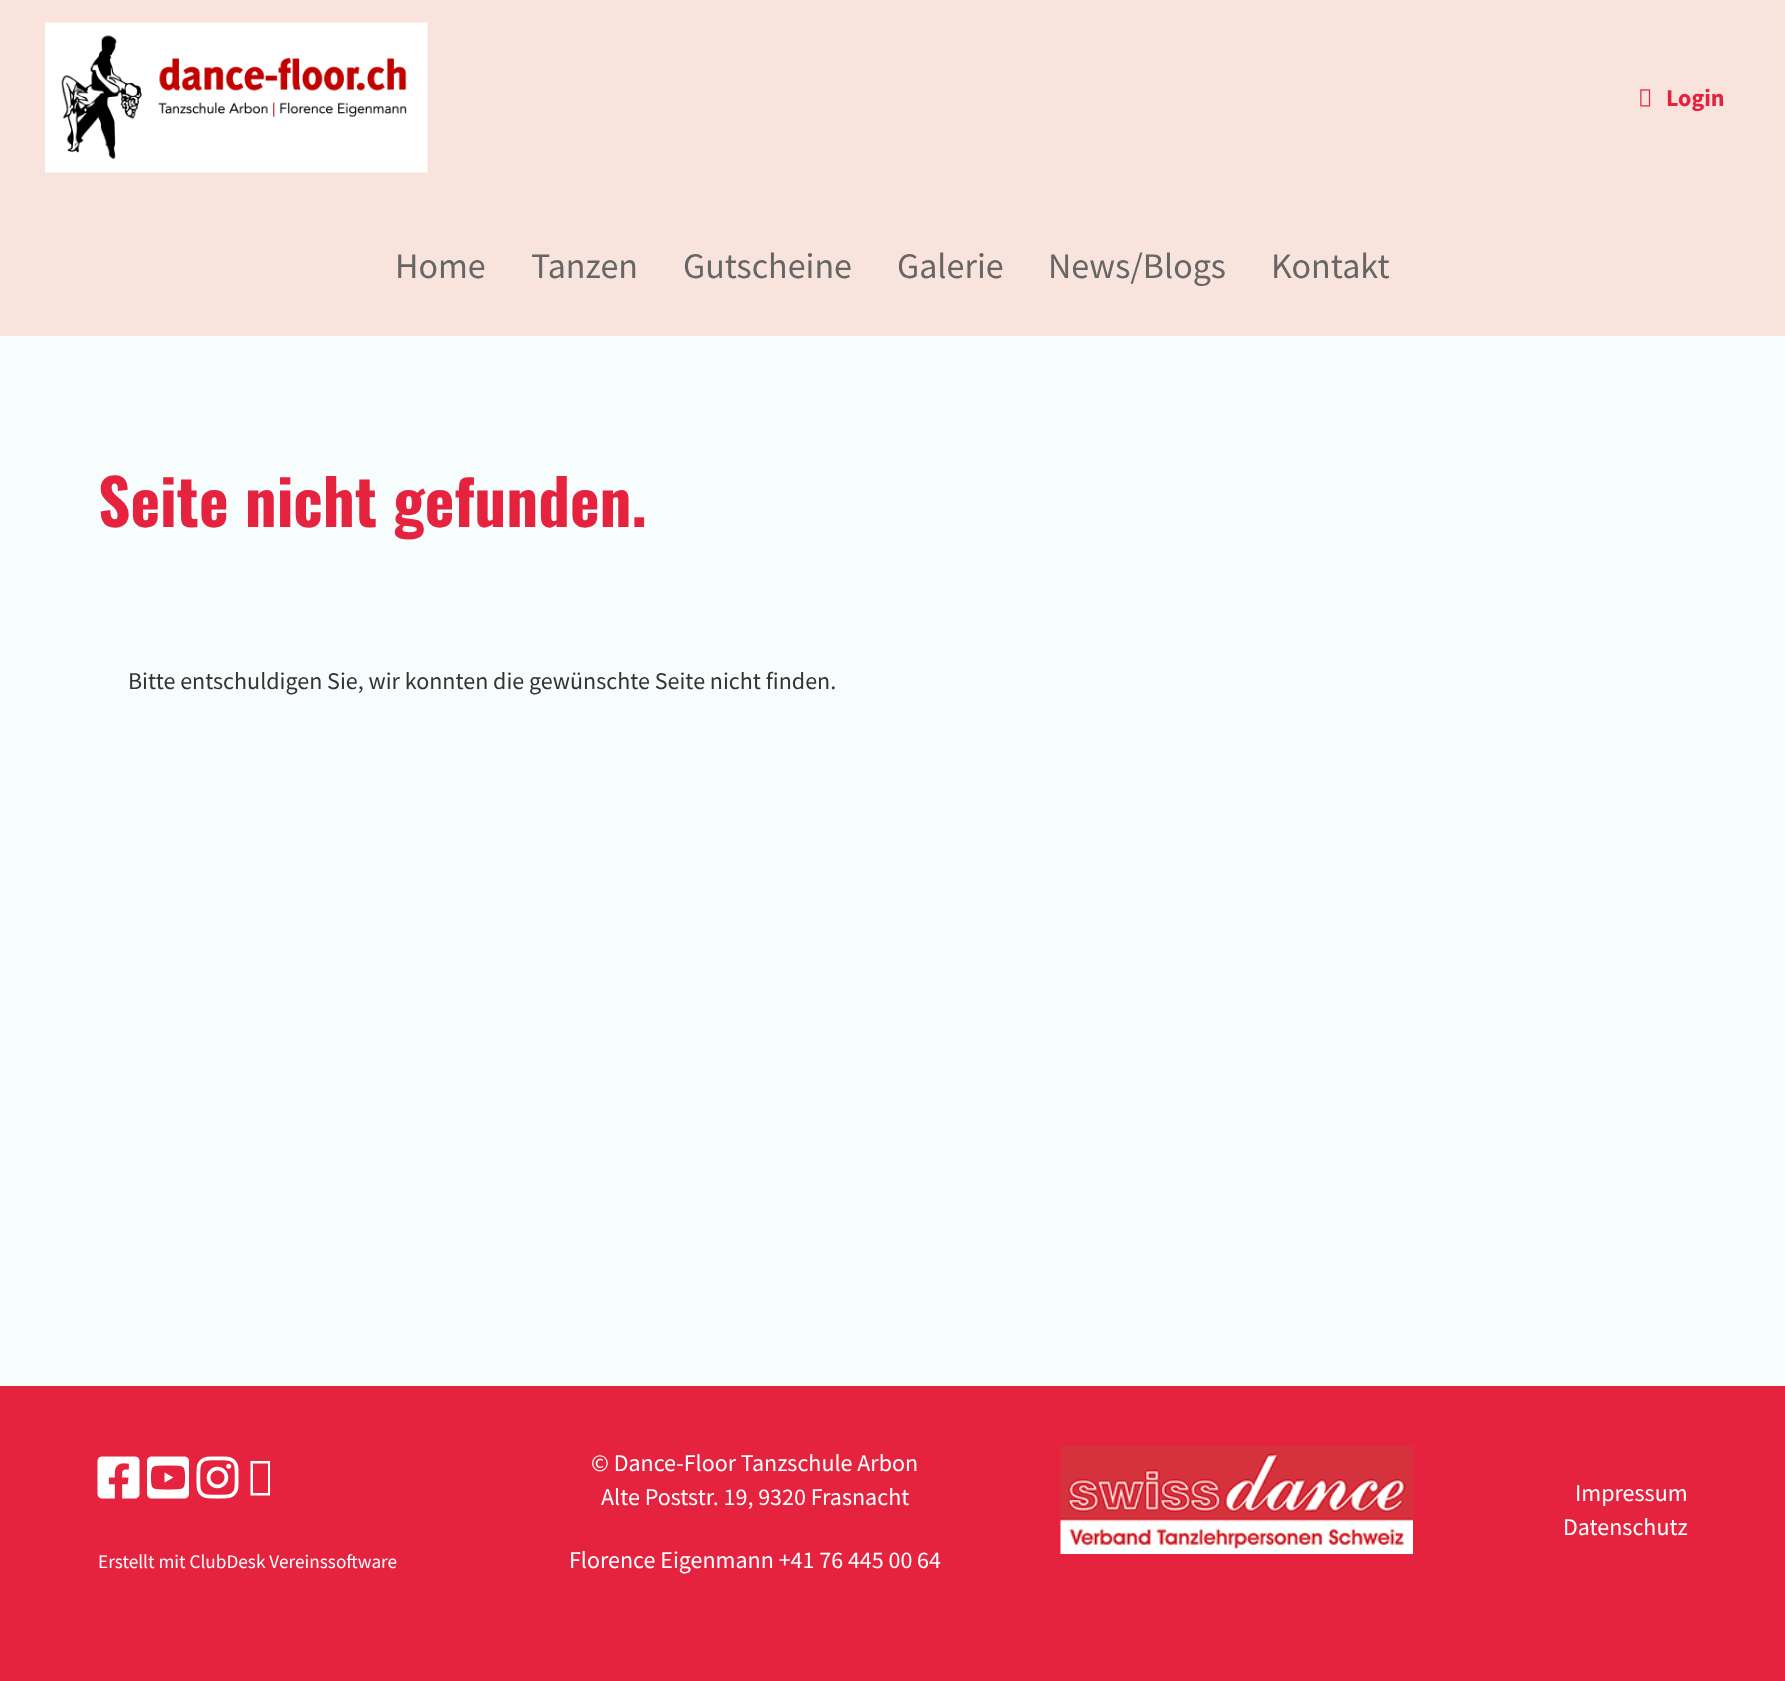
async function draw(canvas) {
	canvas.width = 1785;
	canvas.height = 1681;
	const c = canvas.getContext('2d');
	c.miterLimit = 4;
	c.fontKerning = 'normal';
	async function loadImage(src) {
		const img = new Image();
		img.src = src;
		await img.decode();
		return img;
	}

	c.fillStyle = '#f7fdfd';
	c.fillRect(0, 0, 1785, 1681);
	c.fillStyle = '#f8e4dc';
	c.fillRect(0, 0, 1785, 336);
	c.drawImage(await loadImage('img1.png'), 45, 22, 383, 151);
	c.drawImage(await loadImage('img2.png'), 1640, 89, 11, 18);
	c.font = 'bold 24px Source Sans Pro';
	c.fillStyle = '#e5233e';
	c.fillText('Login', 1666, 106);
	c.font = '36px Source Sans Pro';
	c.fillStyle = '#666';
	for (const [text, x, y] of [
		['Home', 395, 278],
		['Tanzen', 531, 278],
		['Gutscheine', 683, 278],
		['Galerie', 897, 278],
		['News/Blogs', 1048, 278],
		['Kontakt', 1271, 278],
	]) {
		c.fillText(text, x, y);
	}
	c.font = 'bold 63px Oswald';
	c.fillStyle = '#e5233e';
	c.fillText('Seite nicht gefunden.', 98, 527);
	c.font = '24px Source Sans Pro';
	c.fillStyle = '#333';
	c.fillText('Bitte entschuldigen Sie, wir konnten die gewünschte Seite nicht finden.', 128, 689);
	c.fillStyle = '#e5233e';
	c.fillRect(0, 1386, 1785, 295);
	c.fillStyle = '#fff';
	for (const [text, x, y] of [
		['© Dance-Floor Tanzschule Arbon', 591, 1471],
		['Alte Poststr. 19, 9320 Frasnacht', 601, 1505],
		['Florence Eigenmann +41 76 445 00 64', 569, 1568],
	]) {
		c.fillText(text, x, y);
	}
	c.drawImage(await loadImage('img3.png'), 1060, 1446, 353, 108);
	c.fillText('Impressum', 1575, 1501);
	c.fillText('Datenschutz', 1563, 1535);
	c.drawImage(await loadImage('img4.png'), 97, 1456, 43, 43);
	c.drawImage(await loadImage('img5.png'), 147, 1456, 42, 43);
	c.drawImage(await loadImage('img6.png'), 196, 1456, 43, 43);
	c.beginPath();
	c.moveTo(250.5, 1495.5);
	c.lineTo(250.5, 1461);
	c.lineTo(270, 1461);
	c.lineTo(270, 1495.5);
	c.closePath();
	c.moveTo(253, 1493);
	c.lineTo(268, 1493);
	c.lineTo(268, 1463.5);
	c.lineTo(253, 1463.5);
	c.closePath();
	c.fill();
	c.font = '19.25px Source Sans Pro';
	c.fillText('Erstellt mit ClubDesk Vereinssoftware', 98, 1568);
}

draw(document.querySelector('canvas'));
